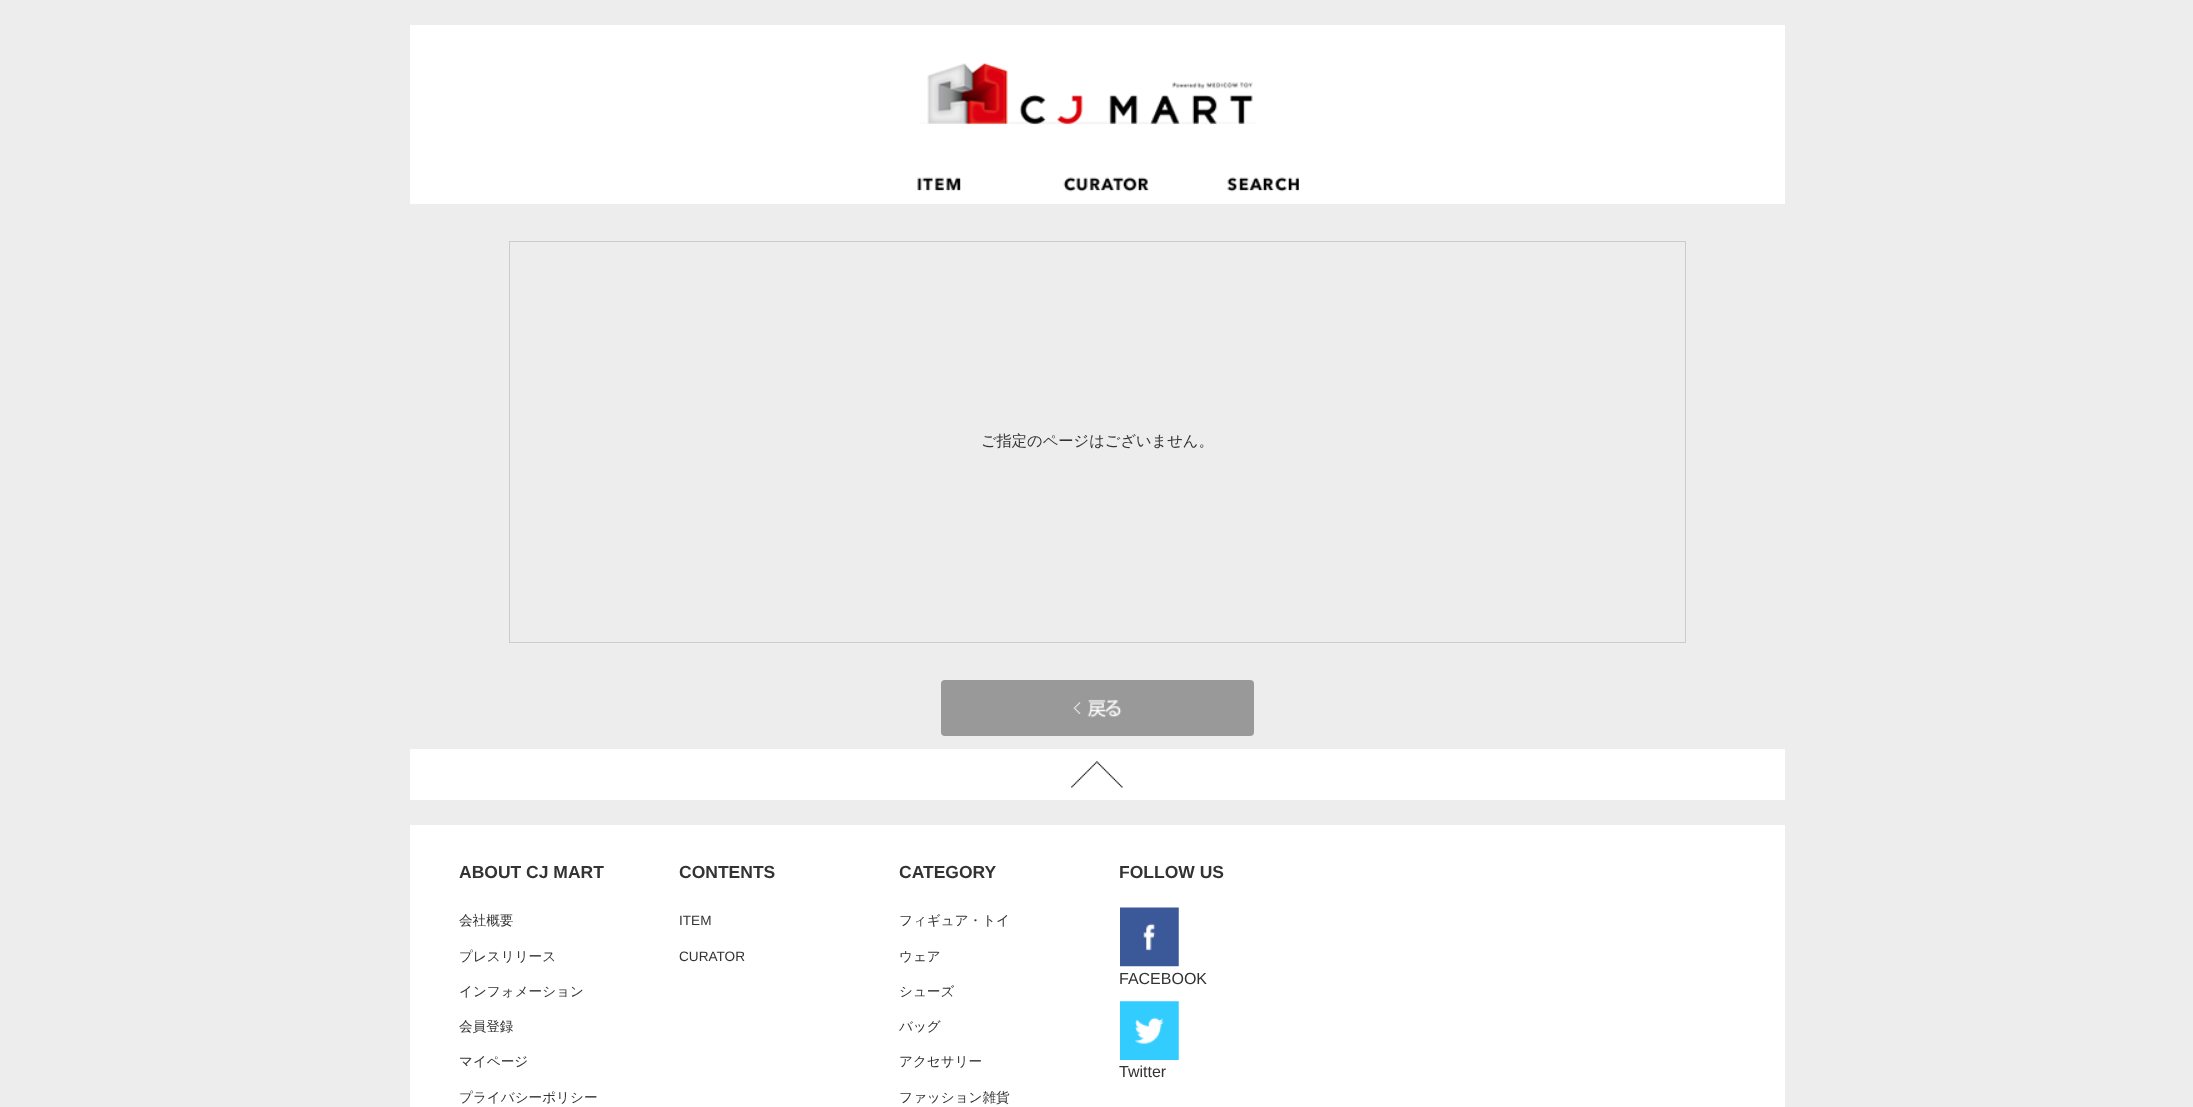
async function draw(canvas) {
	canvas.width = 2193;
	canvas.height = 1107;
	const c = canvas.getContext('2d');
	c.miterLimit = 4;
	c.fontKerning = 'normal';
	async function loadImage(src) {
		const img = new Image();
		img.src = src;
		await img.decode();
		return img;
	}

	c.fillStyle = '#ededed';
	c.fillRect(0, 0, 2193, 1107);
	c.fillStyle = '#fff';
	c.fillRect(410, 25, 1375, 179);
	c.drawImage(await loadImage('img1.png'), 920, 63, 336, 62);
	c.drawImage(await loadImage('img2.png'), 917, 177, 44, 14);
	c.drawImage(await loadImage('img3.png'), 1063, 177, 86, 15);
	c.drawImage(await loadImage('img4.png'), 1227, 177, 72, 15);
	c.strokeStyle = '#ccc';
	c.strokeRect(509.5, 241.5, 1176, 401);
	c.font = '500 15.25px WenQuanYi Zen Hei';
	c.fillStyle = '#333';
	c.fillText('ご指定のページはございません。', 981, 446);
	c.fillStyle = '#999';
	c.beginPath();
	c.roundRect(941, 680, 313, 56, 4);
	c.fill();
	c.drawImage(await loadImage('img5.png'), 1073, 699, 49, 19);
	c.fillStyle = '#fff';
	c.fillRect(410, 749, 1375, 51);
	c.drawImage(await loadImage('img6.png'), 1071, 761, 52, 27);
	c.fillRect(410, 825, 1375, 282);
	c.font = 'bold 17.5px Liberation Sans';
	c.fillStyle = '#333';
	c.fillText('ABOUT CJ MART', 459, 878);
	c.font = '500 13.6px WenQuanYi Zen Hei';
	for (const [text, x, y] of [
		['会社概要', 459, 925],
		['プレスリリース', 459, 961],
		['インフォメーション', 459, 996],
		['会員登録', 459, 1031],
		['マイページ', 459, 1066],
		['プライバシーポリシー', 459, 1102],
	]) {
		c.fillText(text, x, y);
	}
	c.font = 'bold 17.5px Liberation Sans';
	c.fillText('CONTENTS', 679, 878);
	c.font = '13.6px Liberation Sans';
	c.fillText('ITEM', 679, 925);
	c.fillText('CURATOR', 679, 961);
	c.font = 'bold 17.5px Liberation Sans';
	c.fillText('CATEGORY', 899, 878);
	c.font = '500 13.6px WenQuanYi Zen Hei';
	for (const [text, x, y] of [
		['フィギュア・トイ', 899, 925],
		['ウェア', 899, 961],
		['シューズ', 899, 996],
		['バッグ', 899, 1031],
		['アクセサリー', 899, 1066],
		['ファッション雑貨', 899, 1102],
	]) {
		c.fillText(text, x, y);
	}
	c.font = 'bold 17.5px Liberation Sans';
	c.fillText('FOLLOW US', 1119, 878);
	c.drawImage(await loadImage('img7.png'), 1120, 907, 59, 60);
	c.font = '16px Liberation Sans';
	c.fillText('FACEBOOK', 1119, 984);
	c.drawImage(await loadImage('img8.png'), 1120, 1001, 59, 59);
	c.fillText('Twitter', 1119, 1077);
}

draw(document.querySelector('canvas'));
